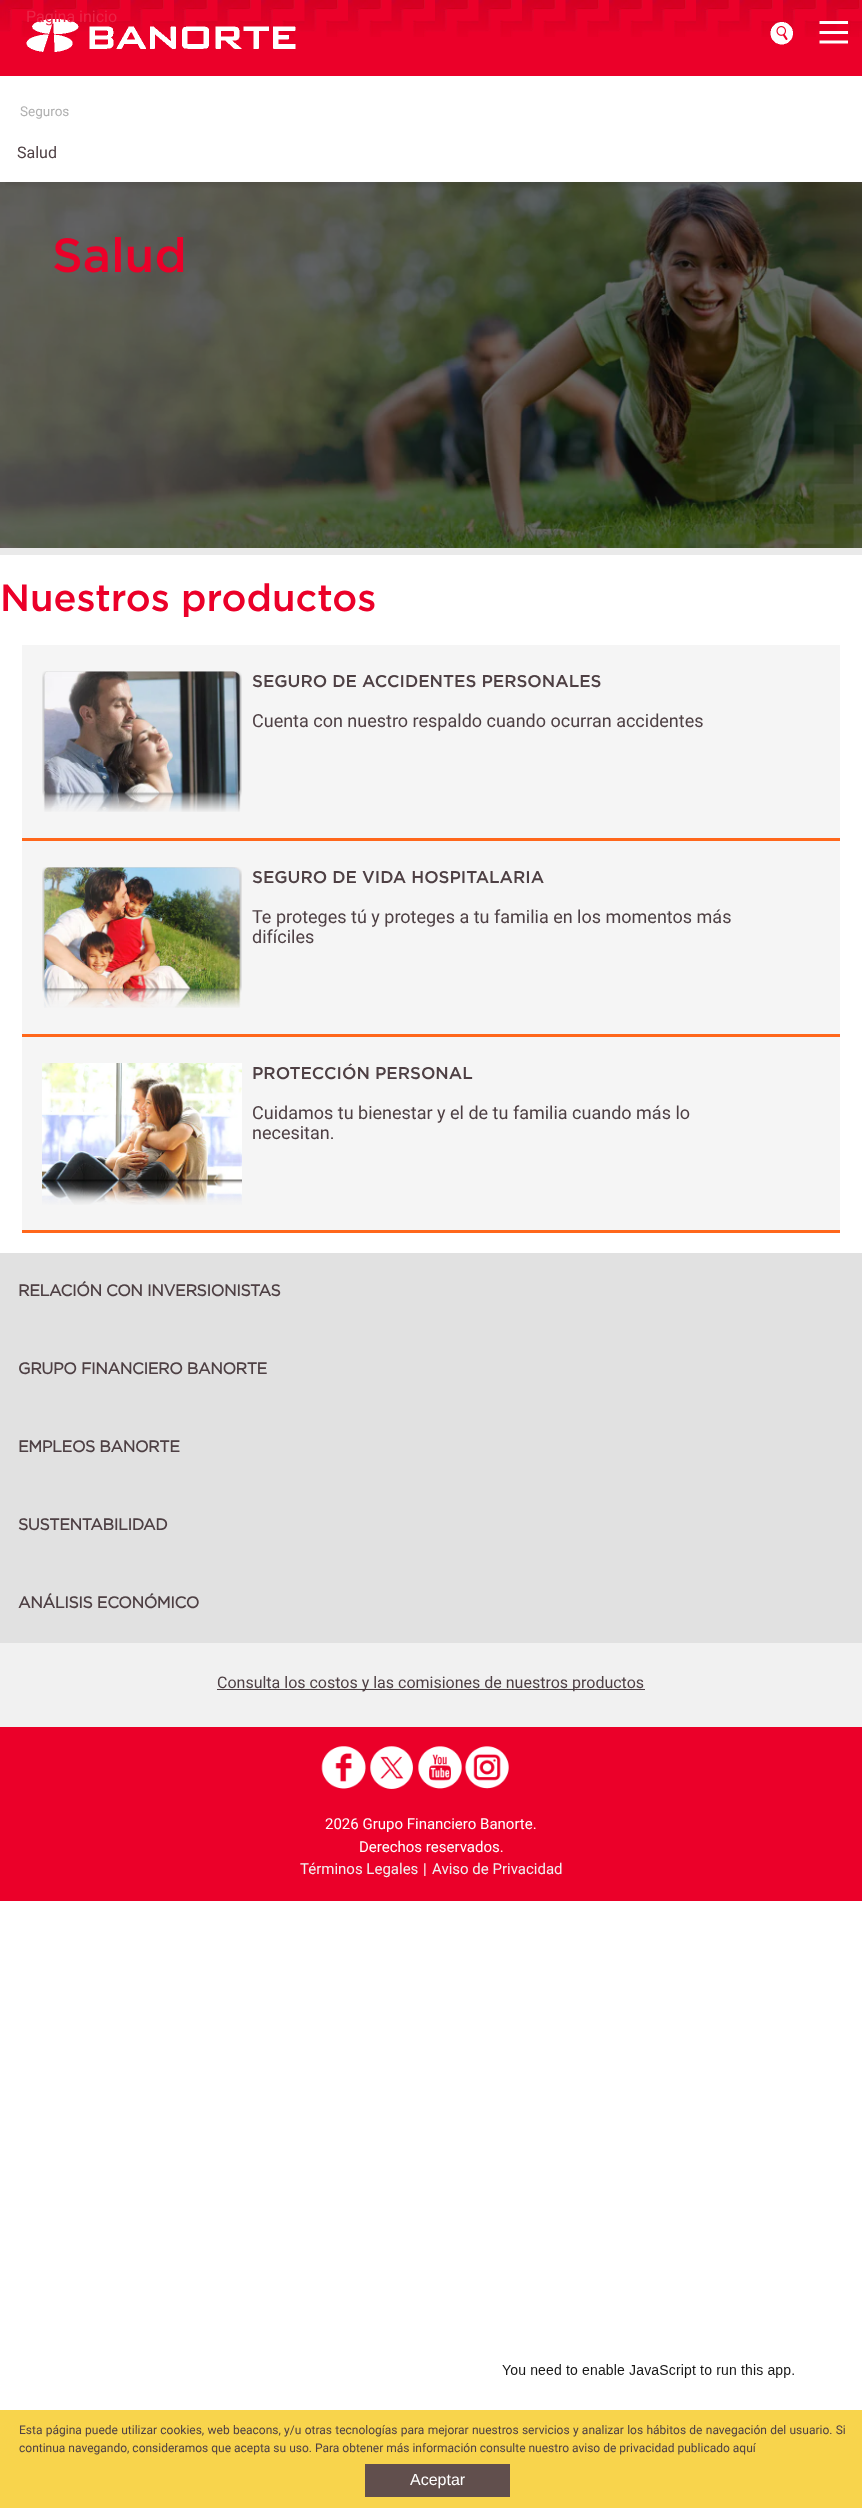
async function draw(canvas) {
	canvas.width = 862;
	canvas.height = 2508;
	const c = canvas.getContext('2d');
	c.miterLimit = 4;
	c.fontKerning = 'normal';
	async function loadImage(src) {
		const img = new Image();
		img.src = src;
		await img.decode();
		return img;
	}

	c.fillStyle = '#fff';
	c.fillRect(0, 0, 862, 2508);
	c.fillStyle = '#eb0029';
	c.fillRect(0, 0, 862, 76);
	c.drawImage(await loadImage('img1.png'), 0, 0, 862, 37);
	c.drawImage(await loadImage('img2.png'), 26, 19, 270, 33);
	c.font = '16px Roboto';
	c.fillStyle = '#eb2648';
	c.fillText('Pagina inicio', 26, 22);
	c.drawImage(await loadImage('img3.png'), 770, 22, 23, 23);
	c.drawImage(await loadImage('img4.png'), 819, 21, 29, 23);
	c.font = '13.5px Roboto';
	c.fillStyle = '#b0b0b0';
	c.fillText('Seguros', 20, 116);
	c.font = '16px Roboto';
	c.fillStyle = '#4e4044';
	c.fillText('Salud', 17, 158);
	c.fillStyle = '#eaeaea';
	c.fillRect(0, 548, 862, 7);
	c.drawImage(await loadImage('img5.png'), 0, 182, 862, 366);
	c.font = '500 48px Gotham';
	c.fillStyle = '#eb0029';
	c.fillText('Salud', 52, 272);
	c.font = '500 38px Gotham';
	c.fillText('Nuestros productos', 0, 611);
	c.fillStyle = '#f5f5f5';
	c.fillRect(22, 645, 818, 193);
	c.fillStyle = '#ff671b';
	c.fillRect(22, 838, 818, 3);
	c.drawImage(await loadImage('img6.png'), 42, 671, 200, 141);
	c.font = '500 17px Gotham';
	c.fillStyle = '#4e4044';
	c.fillText('SEGURO DE ACCIDENTES PERSONALES', 252, 687);
	c.font = '18px Roboto';
	c.fillText('Cuenta con nuestro respaldo cuando ocurran accidentes', 252, 727);
	c.fillStyle = '#f5f5f5';
	c.fillRect(22, 841, 818, 193);
	c.fillStyle = '#ff671b';
	c.fillRect(22, 1034, 818, 3);
	c.drawImage(await loadImage('img7.png'), 42, 867, 200, 141);
	c.font = '500 17px Gotham';
	c.fillStyle = '#4e4044';
	c.fillText('SEGURO DE VIDA HOSPITALARIA', 252, 883);
	c.font = '18px Roboto';
	c.fillText('Te proteges tú y proteges a tu familia en los momentos más', 252, 923);
	c.fillText('difíciles', 252, 943);
	c.fillStyle = '#f5f5f5';
	c.fillRect(22, 1037, 818, 193);
	c.fillStyle = '#ff671b';
	c.fillRect(22, 1230, 818, 3);
	c.drawImage(await loadImage('img8.png'), 42, 1063, 200, 142);
	c.font = '500 17px Gotham';
	c.fillStyle = '#4e4044';
	c.fillText('PROTECCIÓN PERSONAL', 252, 1079);
	c.font = '18px Roboto';
	c.fillText('Cuidamos tu bienestar y el de tu familia cuando más lo', 252, 1119);
	c.fillText('necesitan.', 252, 1139);
	c.fillStyle = '#e1e1e1';
	c.fillRect(0, 1253, 862, 390);
	c.letterSpacing = '-0.4px';
	c.font = 'bold 16px Gotham';
	c.fillStyle = '#4e4044';
	for (const [text, x, y] of [
		['RELACIÓN CON INVERSIONISTAS', 18, 1296],
		['GRUPO FINANCIERO BANORTE', 18, 1374],
		['EMPLEOS BANORTE', 18, 1452],
		['SUSTENTABILIDAD', 18, 1530],
		['ANÁLISIS ECONÓMICO', 18, 1608],
	]) {
		c.fillText(text, x, y);
	}
	c.fillStyle = '#f1f1f1';
	c.fillRect(0, 1643, 862, 84);
	c.fillStyle = '#4d3f44';
	c.fillRect(217, 1689, 428, 1);
	c.letterSpacing = '0px';
	c.font = '16px Roboto';
	c.fillStyle = '#4e4044';
	c.fillText('Consulta los costos y las comisiones de nuestros productos', 217, 1688);
	c.fillStyle = '#eb0029';
	c.fillRect(0, 1727, 862, 174);
	c.drawImage(await loadImage('img9.png'), 321, 1746, 45, 43);
	c.drawImage(await loadImage('img10.png'), 370, 1746, 43, 43);
	c.drawImage(await loadImage('img11.png'), 418, 1746, 44, 43);
	c.drawImage(await loadImage('img12.png'), 465, 1746, 44, 43);
	c.font = '15px Roboto';
	c.fillStyle = '#fff';
	c.fillText('2026 Grupo Financiero Banorte.', 325, 1829);
	c.fillText('Derechos reservados.', 359, 1852);
	c.fillStyle = '#f1f1f1';
	c.fillText('Términos Legales', 300, 1874);
	c.fillStyle = '#fff';
	c.fillText('|', 423, 1874);
	c.fillStyle = '#f1f1f1';
	c.fillText('Aviso de Privacidad', 432, 1874);
	c.drawImage(await loadImage('img13.png'), 502, 2364, 292, 14);
	c.fillStyle = '#f8d44c';
	c.fillRect(0, 2410, 862, 98);
	c.wordSpacing = '0.3px';
	c.font = '12px Roboto';
	c.fillStyle = '#4e4044';
	c.fillText('Esta página puede utilizar cookies, web beacons, y/u otras tecnologías para mejorar nuestros servicios y analizar los hábitos de navegación del usuario. Si', 19, 2434);
	c.wordSpacing = '0px';
	c.fillText('continua navegando, consideramos que acepta su uso. Para obtener más información consulte nuestro aviso de privacidad publicado aquí', 19, 2452);
	c.fillStyle = '#614f4d';
	c.fillRect(365, 2464, 145, 33);
	c.font = '16px Liberation Sans';
	c.fillStyle = '#fff';
	c.fillText('Aceptar', 410, 2485);
}

draw(document.querySelector('canvas'));
